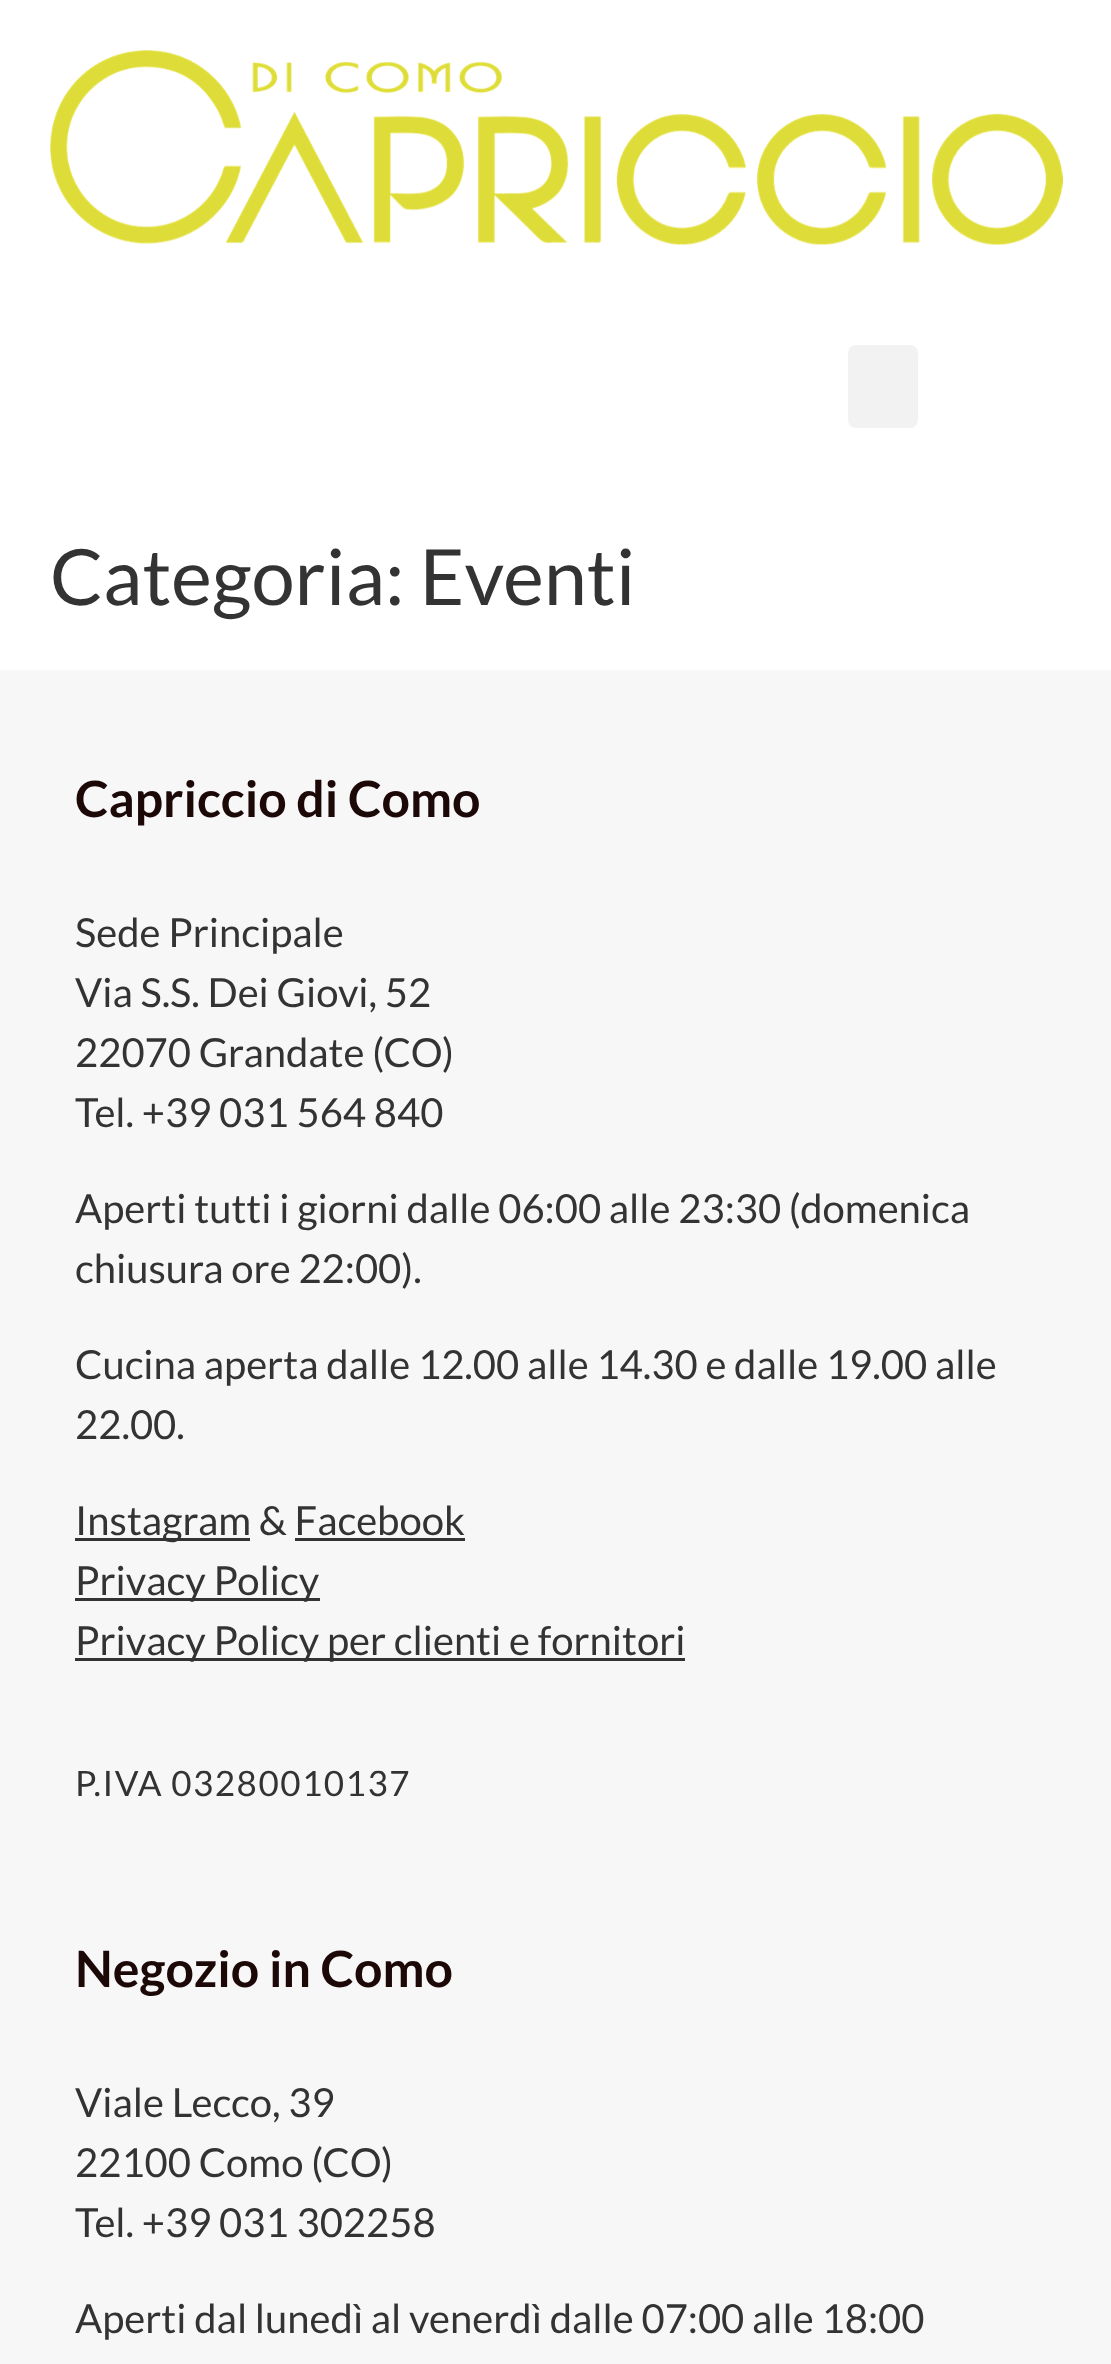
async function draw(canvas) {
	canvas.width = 1111;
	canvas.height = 2364;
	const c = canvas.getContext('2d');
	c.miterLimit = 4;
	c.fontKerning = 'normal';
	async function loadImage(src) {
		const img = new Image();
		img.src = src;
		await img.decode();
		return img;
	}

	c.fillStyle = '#fff';
	c.fillRect(0, 0, 1111, 2364);
	c.drawImage(await loadImage('img1.png'), 50, 50, 1013, 195);
	c.fillStyle = '#f2f2f2';
	c.beginPath();
	c.roundRect(848, 345, 70, 83, 8);
	c.fill();
	c.font = '77.5px Lato';
	c.fillStyle = '#333';
	c.fillText('Categoria: Eventi', 50, 605);
	c.fillStyle = '#f7f7f7';
	c.fillRect(0, 670, 1111, 1694);
	c.font = 'bold 50px Lato';
	c.fillStyle = '#1d0808';
	c.fillText('Capriccio di Como', 75, 817);
	c.font = '40px Lato';
	c.fillStyle = '#333';
	for (const [text, x, y] of [
		['Sede Principale', 75, 947],
		['Via S.S. Dei Giovi, 52', 75, 1007],
		['22070 Grandate (CO)', 75, 1067],
		['Tel. +39 031 564 840', 75, 1127],
		['Aperti tutti i giorni dalle 06:00 alle 23:30 (domenica', 75, 1223],
		['chiusura ore 22:00).', 75, 1283],
		['Cucina aperta dalle 12.00 alle 14.30 e dalle 19.00 alle', 75, 1379],
		['22.00.', 75, 1439],
	]) {
		c.fillText(text, x, y);
	}
	c.fillRect(75, 1538, 175, 3);
	c.fillText('Instagram & Facebook', 75, 1535);
	c.fillRect(295, 1538, 170, 3);
	c.fillRect(75, 1598, 245, 3);
	c.fillText('Privacy Policy', 75, 1595);
	c.fillRect(75, 1658, 610, 3);
	c.fillText('Privacy Policy per clienti e fornitori', 75, 1655);
	c.letterSpacing = '1.5px';
	c.font = '35px Lato';
	c.fillText('P.IVA 03280010137', 75, 1796);
	c.letterSpacing = '0px';
	c.font = 'bold 50px Lato';
	c.fillStyle = '#1d0808';
	c.fillText('Negozio in Como', 75, 1987);
	c.font = '40px Lato';
	c.fillStyle = '#333';
	for (const [text, x, y] of [
		['Viale Lecco, 39', 75, 2117],
		['22100 Como (CO)', 75, 2177],
		['Tel. +39 031 302258', 75, 2237],
		['Aperti dal lunedì al venerdì dalle 07:00 alle 18:00', 75, 2333],
	]) {
		c.fillText(text, x, y);
	}
}

draw(document.querySelector('canvas'));
